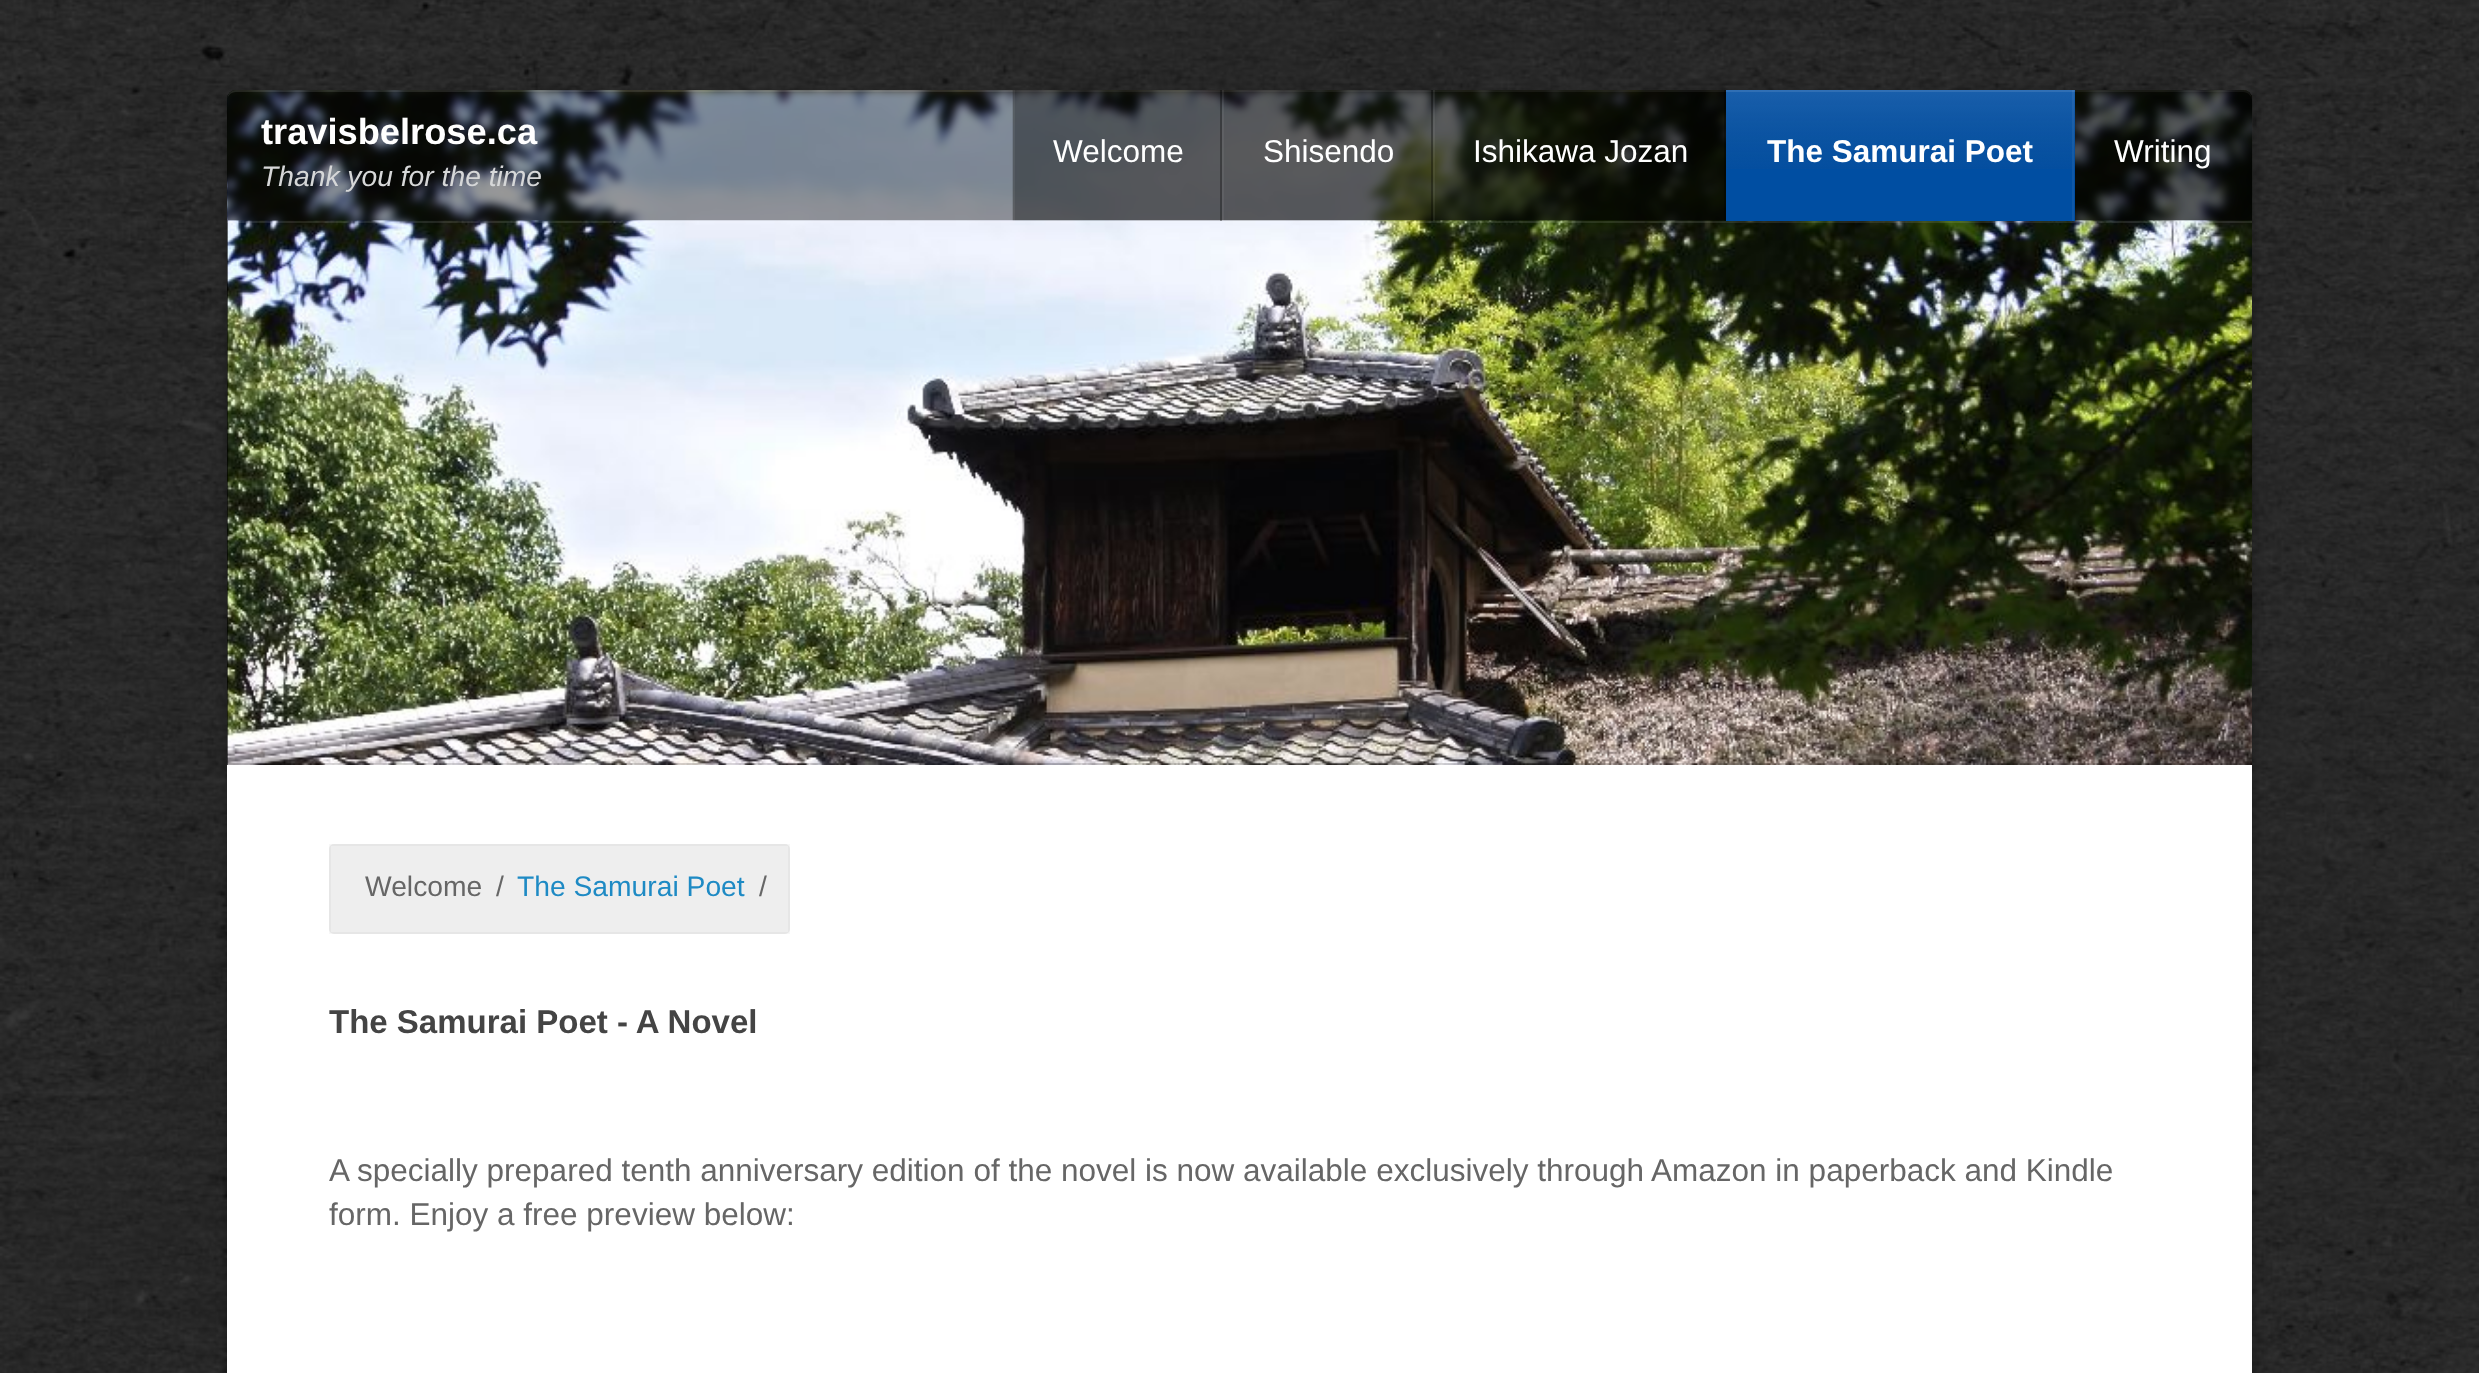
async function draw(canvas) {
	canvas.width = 2479;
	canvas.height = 1373;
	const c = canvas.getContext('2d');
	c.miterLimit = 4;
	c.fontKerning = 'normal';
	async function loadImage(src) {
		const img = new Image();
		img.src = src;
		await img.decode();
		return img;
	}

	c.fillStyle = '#fff';
	c.fillRect(0, 0, 2479, 1373);
	c.drawImage(await loadImage('img1.png'), 0, 0, 2479, 1373);
	c.fillStyle = '#0000004d';
	c.filter = 'blur(5.5px)';
	c.beginPath();
	c.roundRect(227, 95, 2025, 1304, 9);
	c.fill();
	c.filter = 'none';
	c.fillStyle = '#000';
	c.beginPath();
	c.roundRect(227, 90, 2025, 675, [9, 9, 0, 0]);
	c.fill();
	c.drawImage(await loadImage('img2.png'), 227, 90, 2025, 675);
	c.fillStyle = '#00000026';
	c.fillRect(227, 763, 2025, 2);
	c.fillStyle = '#ffffff1a';
	c.fillRect(227, 221, 2025, 2);
	c.fillStyle = '#0000001a';
	c.beginPath();
	c.moveTo(236, 90);
	c.bezierCurveTo(231, 90, 227, 94, 227, 99);
	c.lineTo(227, 221);
	c.lineTo(2252, 221);
	c.lineTo(2252, 99);
	c.bezierCurveTo(2252, 94, 2248, 90, 2243, 90);
	c.closePath();
	c.moveTo(232, 95);
	c.lineTo(232, 216);
	c.lineTo(2247, 216);
	c.lineTo(2247, 95);
	c.closePath();
	c.fill('evenodd');
	c.drawImage(await loadImage('img3.png'), 227, 90, 2026, 131);
	c.drawImage(await loadImage('img4.png'), 227, 90, 2025, 131);
	c.fillStyle = '#ffffff1a';
	c.beginPath();
	c.moveTo(236, 92);
	c.bezierCurveTo(231, 92, 227, 96, 227, 101);
	c.bezierCurveTo(227, 95, 230, 90, 236, 90);
	c.lineTo(2243, 90);
	c.bezierCurveTo(2249, 90, 2252, 95, 2252, 101);
	c.bezierCurveTo(2252, 96, 2248, 92, 2243, 92);
	c.closePath();
	c.fill();
	c.font = 'bold 36.25px Liberation Sans';
	c.fillStyle = '#fff';
	c.fillText('travisbelrose.ca', 261, 144);
	c.font = 'italic 28.25px Liberation Sans';
	c.fillStyle = '#d6d7d8';
	c.fillText('Thank you for the time', 261, 186);
	c.drawImage(await loadImage('img5.png'), 1012, 90, 1240, 131);
	c.fillStyle = '#0000004d';
	c.fillRect(1220, 90, 2, 131);
	c.fillStyle = '#ffffff0f';
	c.fillRect(1013, 90, 2, 131);
	c.font = '31.5px Liberation Sans';
	c.fillStyle = '#fff';
	c.fillText('Welcome', 1053, 162);
	c.fillStyle = '#0000004d';
	c.fillRect(1431, 90, 2, 131);
	c.fillStyle = '#ffffff0f';
	c.fillRect(1222, 90, 2, 131);
	c.fillStyle = '#fff';
	c.fillText('Shisendo', 1263, 162);
	c.fillStyle = '#0000004d';
	c.fillRect(1724, 90, 2, 131);
	c.fillStyle = '#ffffff0f';
	c.fillRect(1433, 90, 2, 131);
	c.fillStyle = '#fff';
	c.fillText('Ishikawa Jozan', 1473, 162);
	c.fillStyle = '#004ea2';
	c.fillRect(1726, 92, 349, 129);
	c.drawImage(await loadImage('img6.png'), 1726, 92, 349, 77);
	c.fillStyle = '#306fb4';
	c.fillRect(1726, 90, 349, 2);
	c.font = 'bold 31.5px Liberation Sans';
	c.fillStyle = '#fff';
	c.fillText('The Samurai Poet', 1767, 162);
	c.fillStyle = '#ffffff0f';
	c.fillRect(2072, 90, 2, 131);
	c.font = '31.5px Liberation Sans';
	c.fillStyle = '#fff';
	c.fillText('Writing', 2114, 162);
	c.fillRect(227, 765, 2025, 608);
	c.fillStyle = '#eee';
	c.beginPath();
	c.roundRect(329, 844, 461, 90, 5);
	c.fill();
	c.strokeStyle = '#00000008';
	c.lineWidth = 2;
	c.strokeRect(330, 845, 459, 88);
	c.font = '28.25px Liberation Sans';
	c.fillStyle = '#666';
	c.fillText('Welcome', 365, 896);
	c.fillText('/', 496, 896);
	c.fillStyle = '#1e8ac4';
	c.fillText('The Samurai Poet', 517, 896);
	c.fillStyle = '#666';
	c.fillText('/', 759, 896);
	c.font = 'bold 33px Liberation Sans';
	c.fillStyle = '#444';
	c.fillText('The Samurai Poet - A Novel', 329, 1033);
	c.font = '31.5px Liberation Sans';
	c.fillStyle = '#666';
	c.fillText('A specially prepared tenth anniversary edition of the novel is now available exclusively through Amazon in paperback and Kindle', 329, 1181);
	c.fillText('form. Enjoy a free preview below:', 329, 1225);
}

draw(document.querySelector('canvas'));
